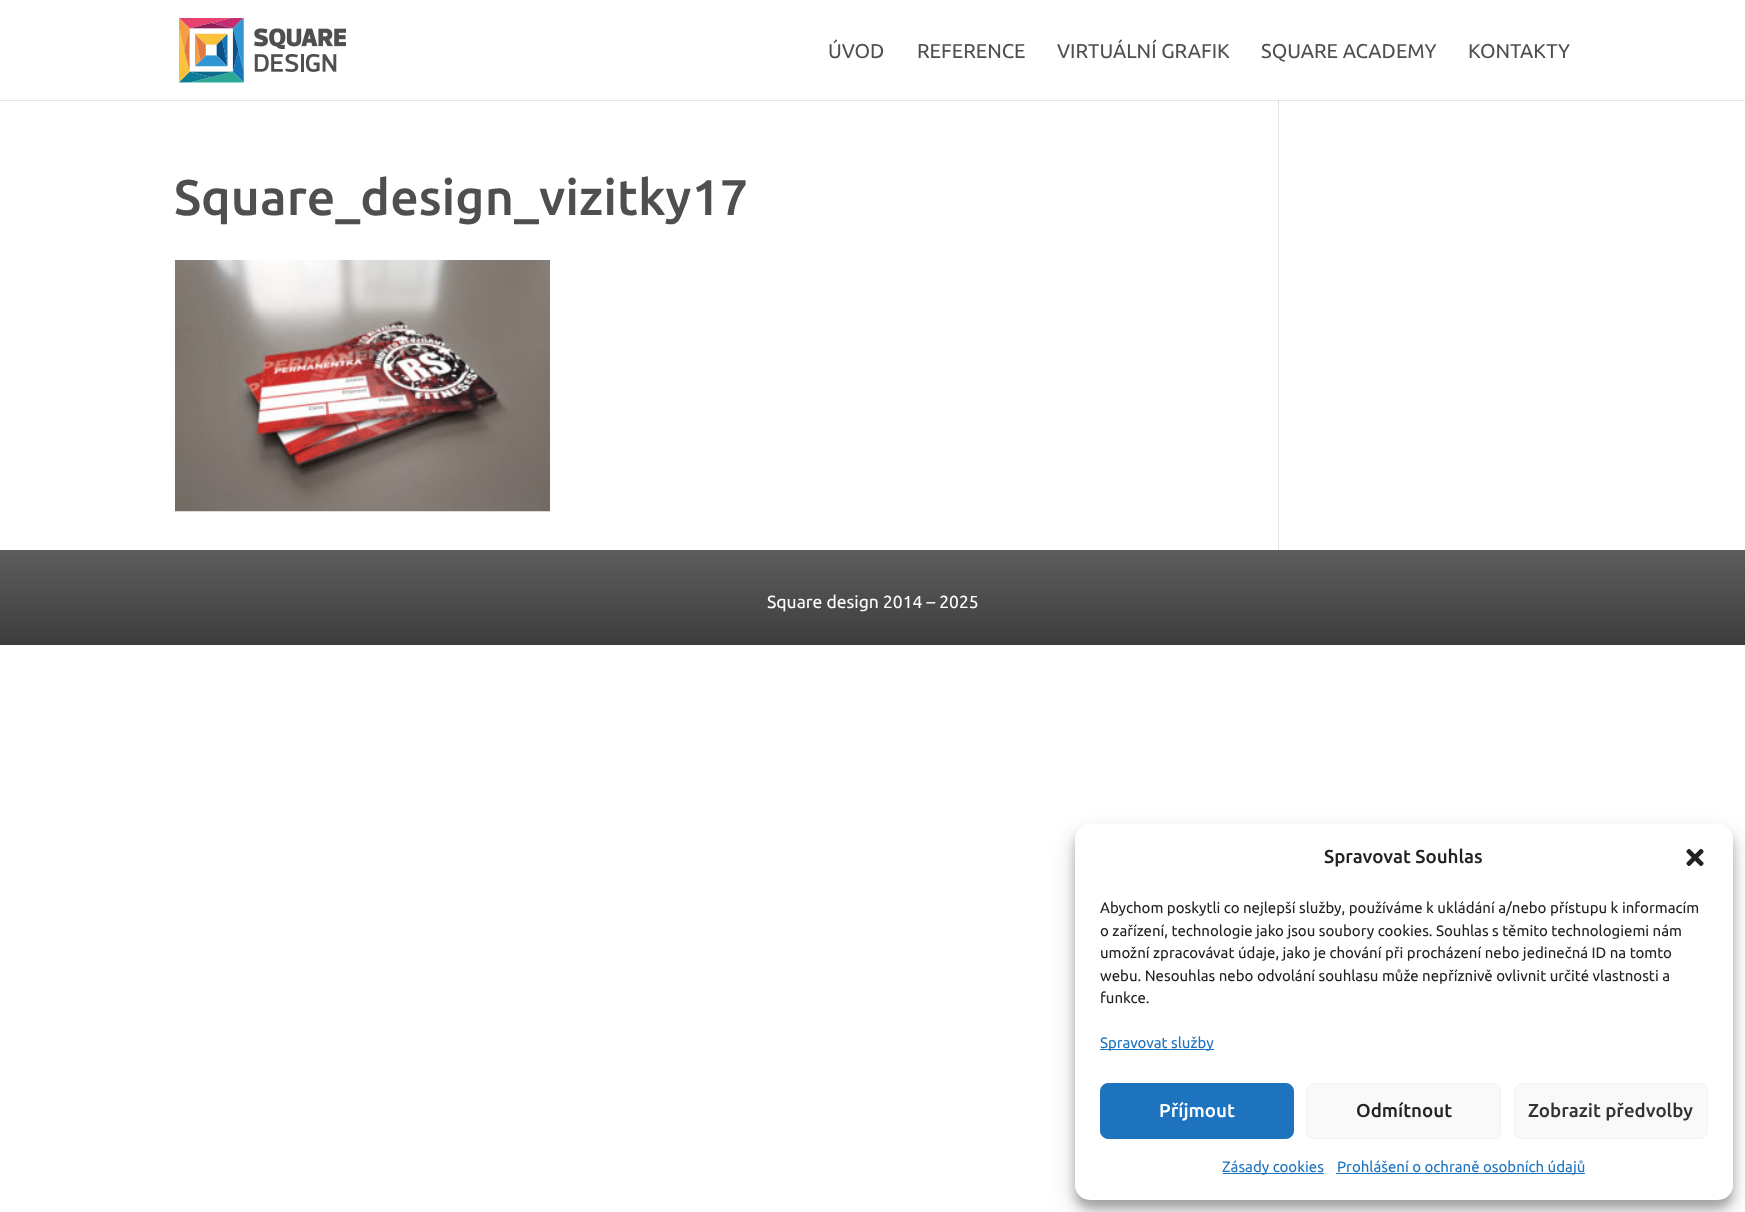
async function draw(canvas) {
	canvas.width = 1745;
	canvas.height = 1212;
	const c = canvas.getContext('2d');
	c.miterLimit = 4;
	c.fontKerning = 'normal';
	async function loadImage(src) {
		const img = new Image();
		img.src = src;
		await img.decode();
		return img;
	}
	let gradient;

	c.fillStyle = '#fff';
	c.fillRect(0, 0, 1745, 1212);
	c.fillStyle = '#e6e6e6';
	c.fillRect(0, 100, 1745, 1);
	c.drawImage(await loadImage('img1.png'), 179, 18, 167, 65);
	c.font = '20px Ubuntu';
	c.fillStyle = '#4f4f4f';
	for (const [text, x, y] of [
		['ÚVOD', 828, 58],
		['REFERENCE', 917, 58],
		['VIRTUÁLNÍ GRAFIK', 1057, 58],
		['SQUARE ACADEMY', 1261, 58],
		['KONTAKTY', 1468, 58],
	]) {
		c.fillText(text, x, y);
	}
	c.font = '500 50px Ubuntu';
	c.fillText('Square_design_vizitky17', 174, 215);
	c.drawImage(await loadImage('img2.png'), 175, 260, 375, 252);
	c.fillStyle = '#e2e2e2';
	c.fillRect(1278, 100, 1, 450);
	c.fillStyle = '#cbcbcb';
	c.fillRect(1278, 100, 1, 1);
	gradient = c.createLinearGradient(873, 550, 873, 645);
	gradient.addColorStop(0, '#5d5d5d');
	gradient.addColorStop(1, '#3d3d3d');
	c.fillStyle = gradient;
	c.fillRect(0, 550, 1745, 95);
	c.font = '17.5px Ubuntu';
	c.fillStyle = '#fff';
	c.fillText('Square design 2014 – 2025', 767, 608);
	c.fillStyle = '#0000003b';
	c.filter = 'blur(4px)';
	c.beginPath();
	c.roundRect(1075, 831, 658, 377, 15);
	c.fill();
	c.filter = 'none';
	c.fillStyle = '#00000030';
	c.filter = 'blur(12.5px)';
	c.beginPath();
	c.roundRect(1075, 836, 658, 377, 15);
	c.fill();
	c.filter = 'none';
	c.fillStyle = '#fff';
	c.beginPath();
	c.roundRect(1075, 824, 658, 376, 15);
	c.fill();
	c.font = '500 18.75px Ubuntu';
	c.fillStyle = '#222';
	c.fillText('Spravovat Souhlas', 1324, 863);
	c.drawImage(await loadImage('img3.png'), 1686, 848, 18, 18);
	c.font = '15px Ubuntu';
	for (const [text, x, y] of [
		['Abychom poskytli co nejlepší služby, používáme k ukládání a/nebo přístupu k informacím', 1100, 913],
		['o zařízení, technologie jako jsou soubory cookies. Souhlas s těmito technologiemi nám', 1100, 936],
		['umožní zpracovávat údaje, jako je chování při procházení nebo jedinečná ID na tomto', 1100, 958],
		['webu. Nesouhlas nebo odvolání souhlasu může nepříznivě ovlivnit určité vlastnosti a', 1100, 981],
		['funkce.', 1100, 1003],
	]) {
		c.fillText(text, x, y);
	}
	c.fillStyle = '#1e73be';
	c.fillRect(1100, 1049, 114, 1);
	c.fillText('Spravovat služby', 1100, 1048);
	c.beginPath();
	c.roundRect(1100.5, 1083.5, 193, 55, 7.5);
	c.fill();
	c.strokeStyle = '#1e73be';
	c.stroke();
	c.font = '500 18.75px Ubuntu';
	c.fillStyle = '#fff';
	c.fillText('Příjmout', 1159, 1117);
	c.fillStyle = '#f9f9f9';
	c.beginPath();
	c.roundRect(1306.5, 1083.5, 194, 55, 7.5);
	c.fill();
	c.strokeStyle = '#f2f2f2';
	c.stroke();
	c.fillStyle = '#222';
	c.fillText('Odmítnout', 1356, 1117);
	c.fillStyle = '#f9f9f9';
	c.beginPath();
	c.roundRect(1514.5, 1083.5, 193, 55, 7.5);
	c.fill();
	c.stroke();
	c.fillStyle = '#333';
	c.fillText('Zobrazit předvolby', 1528, 1117);
	c.fillStyle = '#1e73be';
	c.fillRect(1223, 1173, 101, 1);
	c.font = '15px Ubuntu';
	c.fillText('Zásady cookies', 1222, 1172);
	c.fillRect(1336, 1173, 249, 1);
	c.fillText('Prohlášení o ochraně osobních údajů', 1337, 1172);
}

draw(document.querySelector('canvas'));
